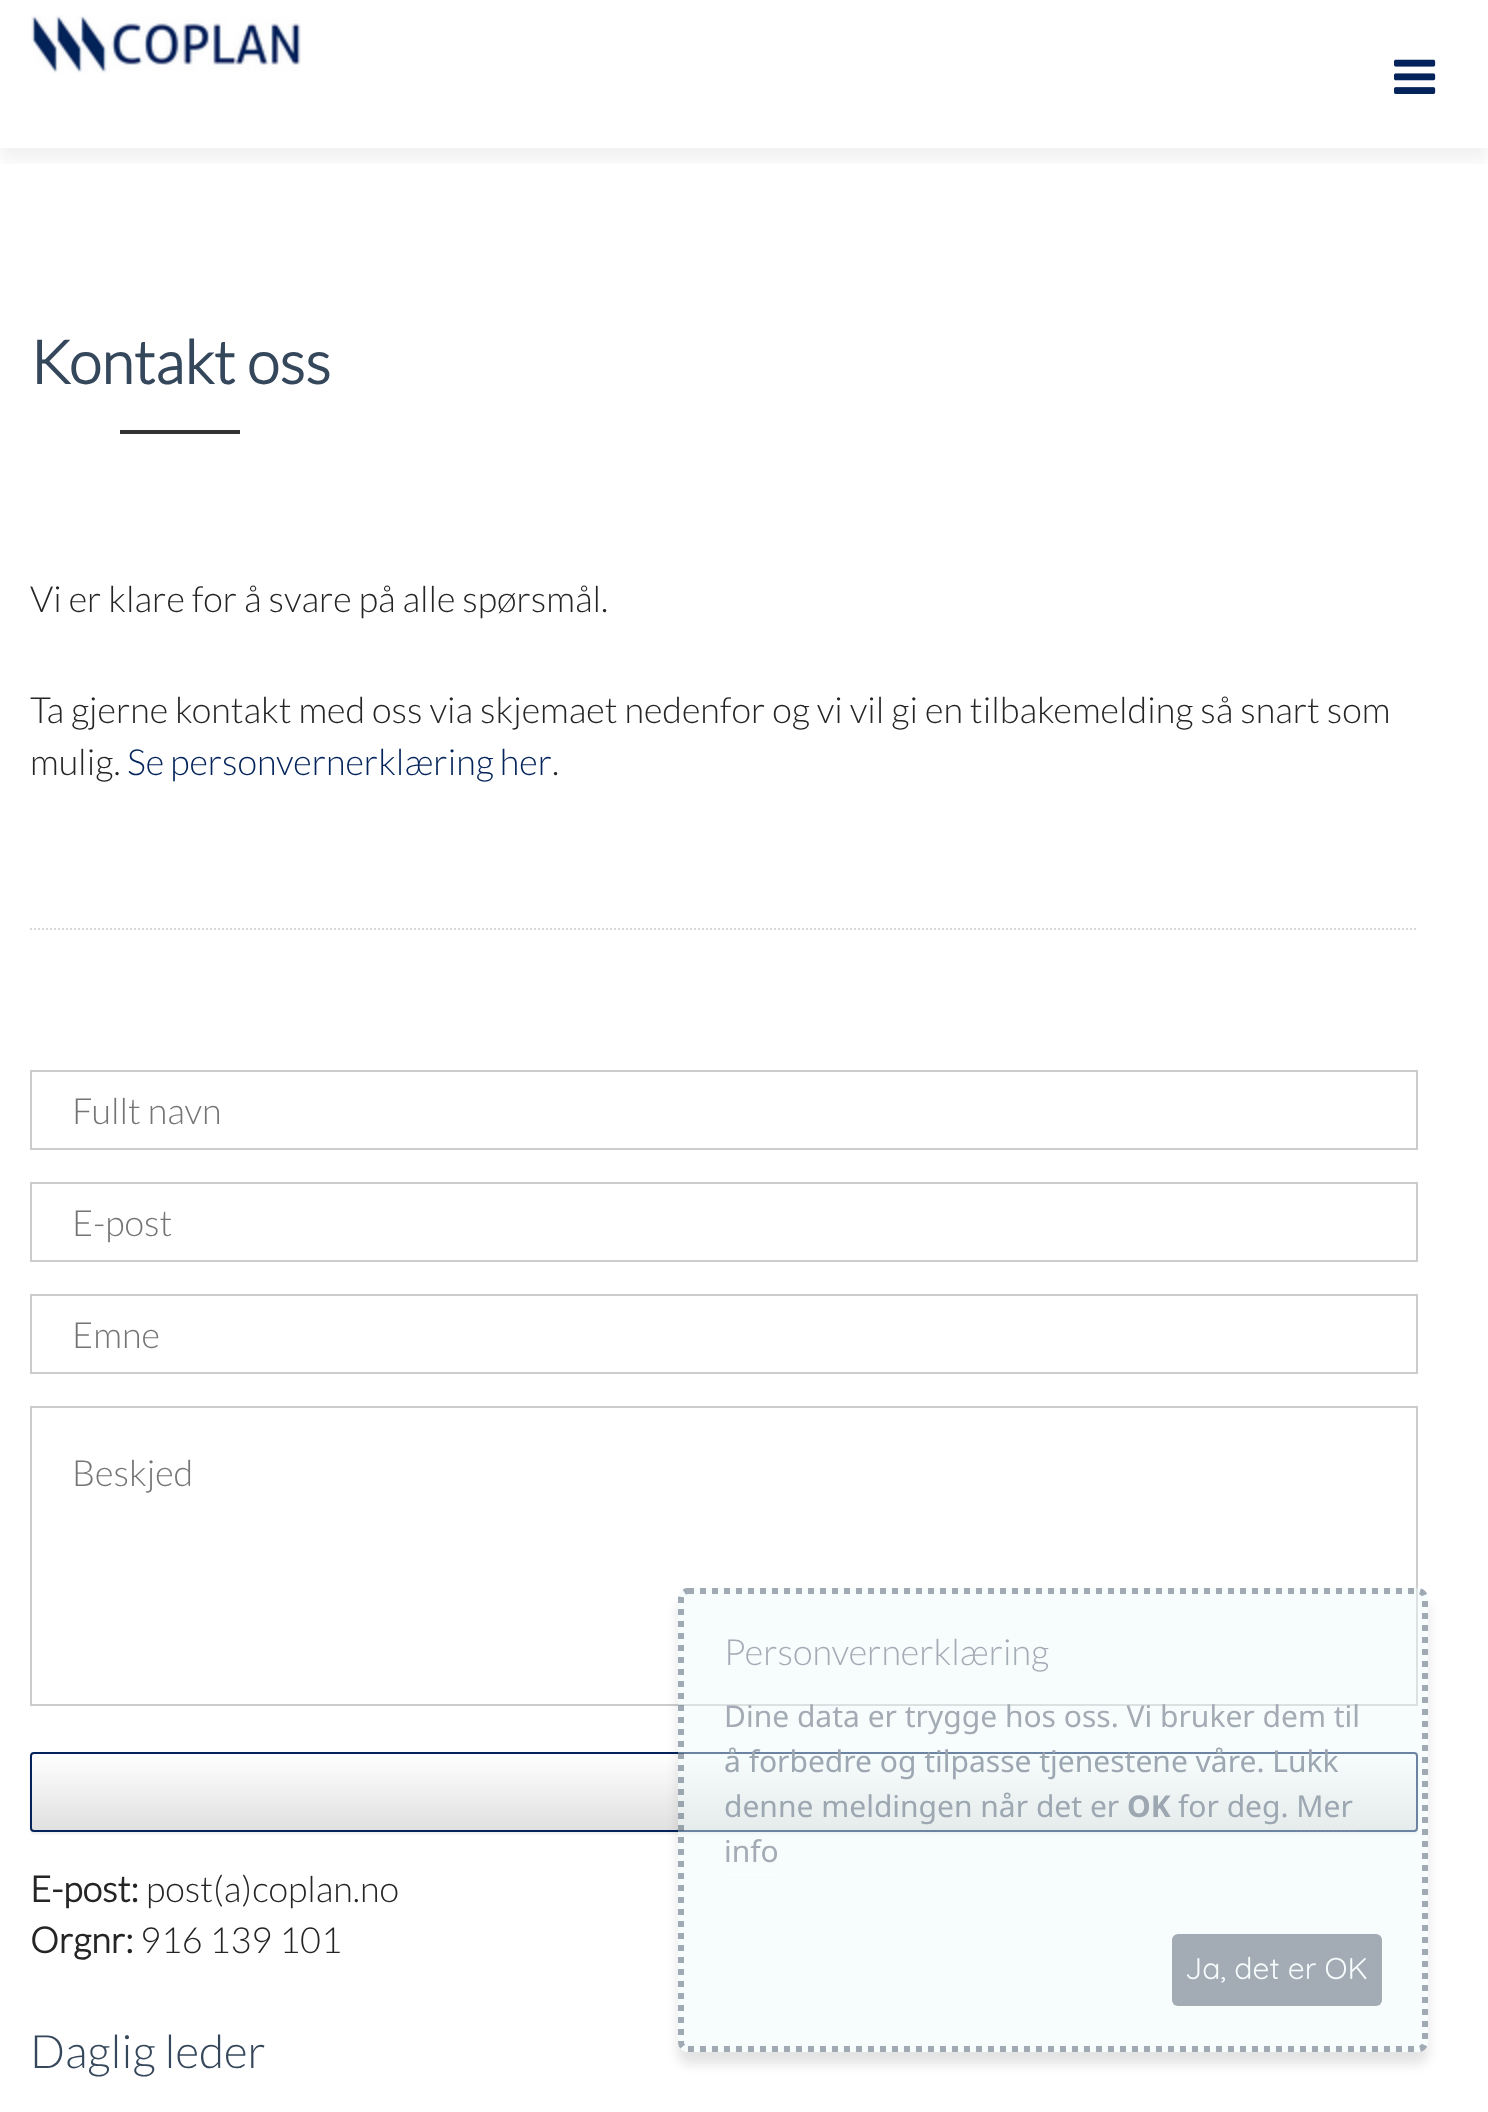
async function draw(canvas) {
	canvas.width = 1488;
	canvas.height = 2112;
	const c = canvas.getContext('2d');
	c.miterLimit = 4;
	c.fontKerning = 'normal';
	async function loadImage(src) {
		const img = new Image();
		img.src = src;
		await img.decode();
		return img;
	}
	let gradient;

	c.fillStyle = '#fff';
	c.fillRect(0, 0, 1488, 2112);
	c.save();
	c.beginPath();
	c.rect(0, 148, 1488, 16);
	c.clip();
	c.fillStyle = '#0000000f';
	c.filter = 'blur(9px)';
	c.beginPath();
	c.rect(0, 12, 1488, 148);
	c.fill();
	c.filter = 'none';
	c.restore();
	c.drawImage(await loadImage('img1.png'), 1394, 59, 42, 35);
	c.drawImage(await loadImage('img2.png'), 31, 15, 270, 58);
	c.font = 'bold 60px Lato';
	c.fillStyle = '#35475b';
	c.fillText('Kontakt oss', 30, 384);
	c.fillStyle = '#333';
	c.fillRect(120, 430, 120, 4);
	c.font = '300 36px Lato';
	c.fillStyle = '#252525';
	for (const [text, x, y] of [
		['Vi er klare for å svare på alle spørsmål.', 30, 612],
		['Ta gjerne kontakt med oss via skjemaet nedenfor og vi vil gi en tilbakemelding så snart som', 30, 723],
		['mulig.', 30, 775],
	]) {
		c.fillText(text, x, y);
	}
	c.wordSpacing = '-1px';
	c.fillStyle = '#03235a';
	c.fillText('Se personvernerklæring her', 127, 775);
	c.wordSpacing = '0px';
	c.fillStyle = '#252525';
	c.fillText('.', 552, 775);
	c.beginPath();
	c.moveTo(30, 929);
	c.lineTo(1418, 929);
	c.strokeStyle = '#d8d8d8';
	c.lineWidth = 2;
	c.setLineDash([2, 2]);
	c.stroke();
	c.strokeStyle = '#ccc';
	c.setLineDash([]);
	c.strokeRect(31, 1071, 1386, 78);
	c.fillStyle = '#757575';
	c.fillText('Fullt navn', 72, 1124);
	c.strokeRect(31, 1183, 1386, 78);
	c.fillText('E-post', 72, 1236);
	c.strokeRect(31, 1295, 1386, 78);
	c.fillText('Emne', 72, 1348);
	c.strokeRect(31, 1407, 1386, 298);
	c.fillText('Beskjed', 72, 1486);
	c.fillStyle = '#00000012';
	c.filter = 'blur(1px)';
	c.beginPath();
	c.roundRect(30, 1754, 1388, 80, 4);
	c.fill();
	c.filter = 'none';
	c.save();
	c.beginPath();
	c.roundRect(30, 1752, 1388, 80, 4);
	c.clip();
	gradient = c.createLinearGradient(724, 1754, 724, 1830);
	gradient.addColorStop(0, '#fff');
	gradient.addColorStop(1, '#e0e0e0');
	c.fillStyle = gradient;
	c.fillRect(30, 1754, 1388, 76);
	c.restore();
	c.beginPath();
	c.roundRect(31, 1753, 1386, 78, 3);
	c.strokeStyle = '#03235a';
	c.stroke();
	c.font = 'bold 36px Lato';
	c.fillStyle = '#252525';
	c.fillText('E-post:', 30, 1902);
	c.font = '300 36px Lato';
	c.fillText('post(a)coplan.no', 146, 1902);
	c.font = 'bold 36px Lato';
	c.fillText('Orgnr:', 30, 1953);
	c.font = '300 36px Lato';
	c.fillText('916 139 101', 140, 1953);
	c.font = '300 46px Lato';
	c.fillStyle = '#35475b';
	c.fillText('Daglig leder', 30, 2068);
	c.save();
	c.beginPath();
	c.moveTo(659, 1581);
	c.lineTo(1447, 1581);
	c.lineTo(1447, 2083);
	c.lineTo(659, 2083);
	c.closePath();
	c.moveTo(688, 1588);
	c.lineTo(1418, 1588);
	c.bezierCurveTo(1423.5, 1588, 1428, 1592.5, 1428, 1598);
	c.lineTo(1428, 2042);
	c.bezierCurveTo(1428, 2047.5, 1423.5, 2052, 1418, 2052);
	c.lineTo(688, 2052);
	c.bezierCurveTo(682.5, 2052, 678, 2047.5, 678, 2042);
	c.lineTo(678, 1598);
	c.bezierCurveTo(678, 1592.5, 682.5, 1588, 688, 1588);
	c.closePath();
	c.clip('evenodd');
	c.fillStyle = '#0000001c';
	c.filter = 'blur(6px)';
	c.beginPath();
	c.roundRect(678, 1600, 750, 464, 10);
	c.fill();
	c.filter = 'none';
	c.restore();
	c.fillStyle = '#edf8fb73';
	c.beginPath();
	c.roundRect(678, 1588, 750, 464, 10);
	c.fill();
	c.beginPath();
	c.moveTo(688, 1591);
	c.lineTo(1418, 1591);
	c.bezierCurveTo(1422, 1591, 1425, 1594, 1425, 1598);
	c.lineTo(1425, 2042);
	c.bezierCurveTo(1425, 2046, 1422, 2049, 1418, 2049);
	c.lineTo(688, 2049);
	c.bezierCurveTo(684, 2049, 681, 2046, 681, 2042);
	c.lineTo(681, 1598);
	c.bezierCurveTo(681, 1594, 684, 1591, 688, 1591);
	c.closePath();
	c.strokeStyle = '#35475b73';
	c.lineWidth = 6;
	c.setLineDash([6, 6]);
	c.stroke();
	c.font = '300 36px Lato';
	c.fillStyle = '#a3abb4';
	c.fillText('Personvernerklæring', 724, 1665);
	c.font = '30px Noto Sans';
	c.fillText('Dine data er trygge hos oss. Vi bruker dem til', 724, 1727);
	c.fillStyle = '#9ca7b1';
	c.fillText('å forbedre og tilpasse tjenestene våre. Lukk', 724, 1772);
	c.fillText('denne meldingen når det er', 724, 1817);
	c.font = 'bold 30px Noto Sans';
	c.fillText('OK', 1127, 1817);
	c.font = '30px Noto Sans';
	c.fillText('for deg. Mer', 1178, 1817);
	c.fillStyle = '#a3abb4';
	c.fillText('info', 724, 1862);
	c.beginPath();
	c.moveTo(1296, 1831);
	c.lineTo(1354, 1831);
	c.strokeStyle = '#7486a4';
	c.lineWidth = 2;
	c.setLineDash([2, 2]);
	c.stroke();
	c.beginPath();
	c.moveTo(724, 1875);
	c.lineTo(778, 1875);
	c.strokeStyle = '#fdfeff';
	c.stroke();
	c.beginPath();
	c.roundRect(1172, 1934, 210, 72, 6);
	c.fill();
	c.font = '30px Quicksand';
	c.fillStyle = '#f7fcfd';
	c.fillText('Ja, det er OK', 1185, 1979);
}

draw(document.querySelector('canvas'));
